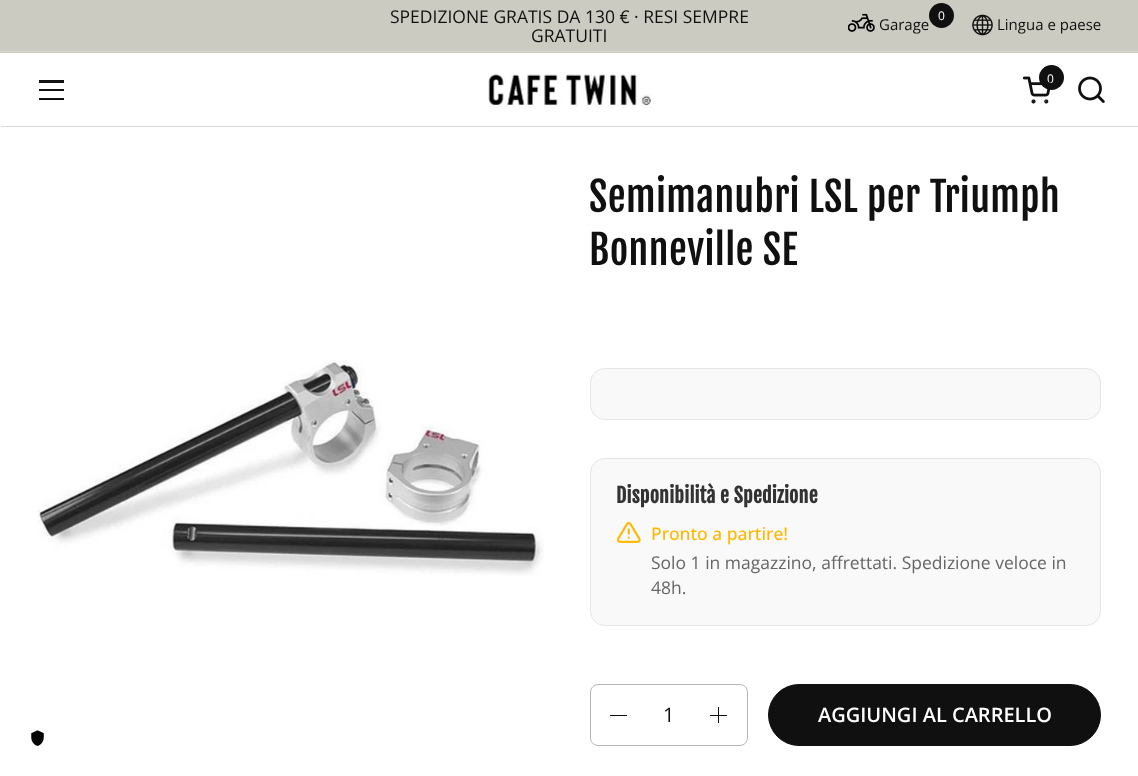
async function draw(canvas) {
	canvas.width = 1138;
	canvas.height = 776;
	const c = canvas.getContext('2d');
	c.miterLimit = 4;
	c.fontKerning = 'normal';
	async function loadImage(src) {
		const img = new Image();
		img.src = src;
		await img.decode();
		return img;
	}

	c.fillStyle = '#fff';
	c.fillRect(0, 0, 1138, 776);
	c.fillStyle = '#cccbc1';
	c.fillRect(0, 0, 1138, 53);
	c.fillStyle = '#dad9ce';
	c.fillRect(0, 51, 1138, 1);
	c.font = '17.5px Open Sans';
	c.fillStyle = '#101010';
	c.fillText('SPEDIZIONE GRATIS DA 130 € · RESI SEMPRE', 390, 23);
	c.fillText('GRATUITI', 531, 42);
	c.drawImage(await loadImage('img1.png'), 848, 13, 27, 19);
	c.font = '15px Open Sans';
	c.fillText('Garage', 879, 30);
	c.beginPath();
	c.arc(941.5, 15.5, 12.5, 0, 2 * Math.PI);
	c.fill();
	c.font = '12px Open Sans';
	c.fillStyle = '#fff';
	c.fillText('0', 938, 20);
	c.drawImage(await loadImage('img2.png'), 972, 14, 21, 22);
	c.font = '15px Open Sans';
	c.fillStyle = '#101010';
	c.fillText('Lingua e paese', 997, 30);
	for (const [x, y, w, h, color] of [
		[39, 80, 25, 3, '#101010'],
		[39, 89, 25, 2, '#101010'],
		[39, 98, 25, 2, '#101010'],
	]) {
		c.fillStyle = color;
		c.fillRect(x, y, w, h);
	}
	c.drawImage(await loadImage('img3.png'), 488, 74, 163, 34);
	c.beginPath();
	c.arc(1051.5, 77.5, 12.5, 0, 2 * Math.PI);
	c.fill();
	c.font = '12px Open Sans';
	c.fillStyle = '#fff';
	c.fillText('0', 1047, 83);
	c.drawImage(await loadImage('img4.png'), 1022, 76, 29, 28);
	c.drawImage(await loadImage('img5.png'), 1078, 76, 27, 27);
	c.fillStyle = '#dbdbdb';
	c.fillRect(1, 126, 1137, 1);
	c.drawImage(await loadImage('img6.png'), 38, 360, 506, 216);
	c.letterSpacing = '0.4px';
	c.font = '40px Fjalla One';
	c.fillStyle = '#101010';
	c.fillText('Semimanubri LSL per Triumph', 589, 212);
	c.fillText('Bonneville SE', 589, 265);
	c.fillStyle = '#f9f9f9';
	c.beginPath();
	c.roundRect(590.5, 368.5, 510, 51, 14.5);
	c.fill();
	c.strokeStyle = '#e5e5e5';
	c.stroke();
	c.beginPath();
	c.roundRect(590.5, 458.5, 510, 167, 14.5);
	c.fill();
	c.stroke();
	c.letterSpacing = '0.2px';
	c.font = 'bold 20px Fjalla One';
	c.fillStyle = '#333';
	c.fillText('Disponibilità e Spedizione', 616, 503);
	c.drawImage(await loadImage('img7.png'), 616, 522, 25, 21);
	c.letterSpacing = '0px';
	c.font = '500 17.5px Open Sans';
	c.fillStyle = '#ffb700';
	c.fillText('Pronto a partire!', 651, 540);
	c.font = '17.5px Open Sans';
	c.fillStyle = '#666';
	c.fillText('Solo 1 in magazzino, affrettati. Spedizione veloce in', 651, 569);
	c.fillText('48h.', 651, 594);
	c.beginPath();
	c.roundRect(590.5, 684.5, 157, 61, 7.5);
	c.strokeStyle = '#b7b7b7';
	c.stroke();
	c.fillStyle = '#101010';
	c.fillRect(610, 715, 17, 1);
	c.font = '20px Open Sans';
	c.fillText('1', 663, 722);
	c.fillRect(718, 707, 1, 16);
	c.fillRect(710, 715, 17, 1);
	c.beginPath();
	c.roundRect(768.5, 684.5, 332, 61, 30.5);
	c.fill();
	c.strokeStyle = '#101010';
	c.stroke();
	c.font = '600 20px Open Sans';
	c.fillStyle = '#fff';
	c.fillText('AGGIUNGI AL CARRELLO', 818, 722);
	c.drawImage(await loadImage('img8.png'), 31, 730, 13, 16);
}

draw(document.querySelector('canvas'));
